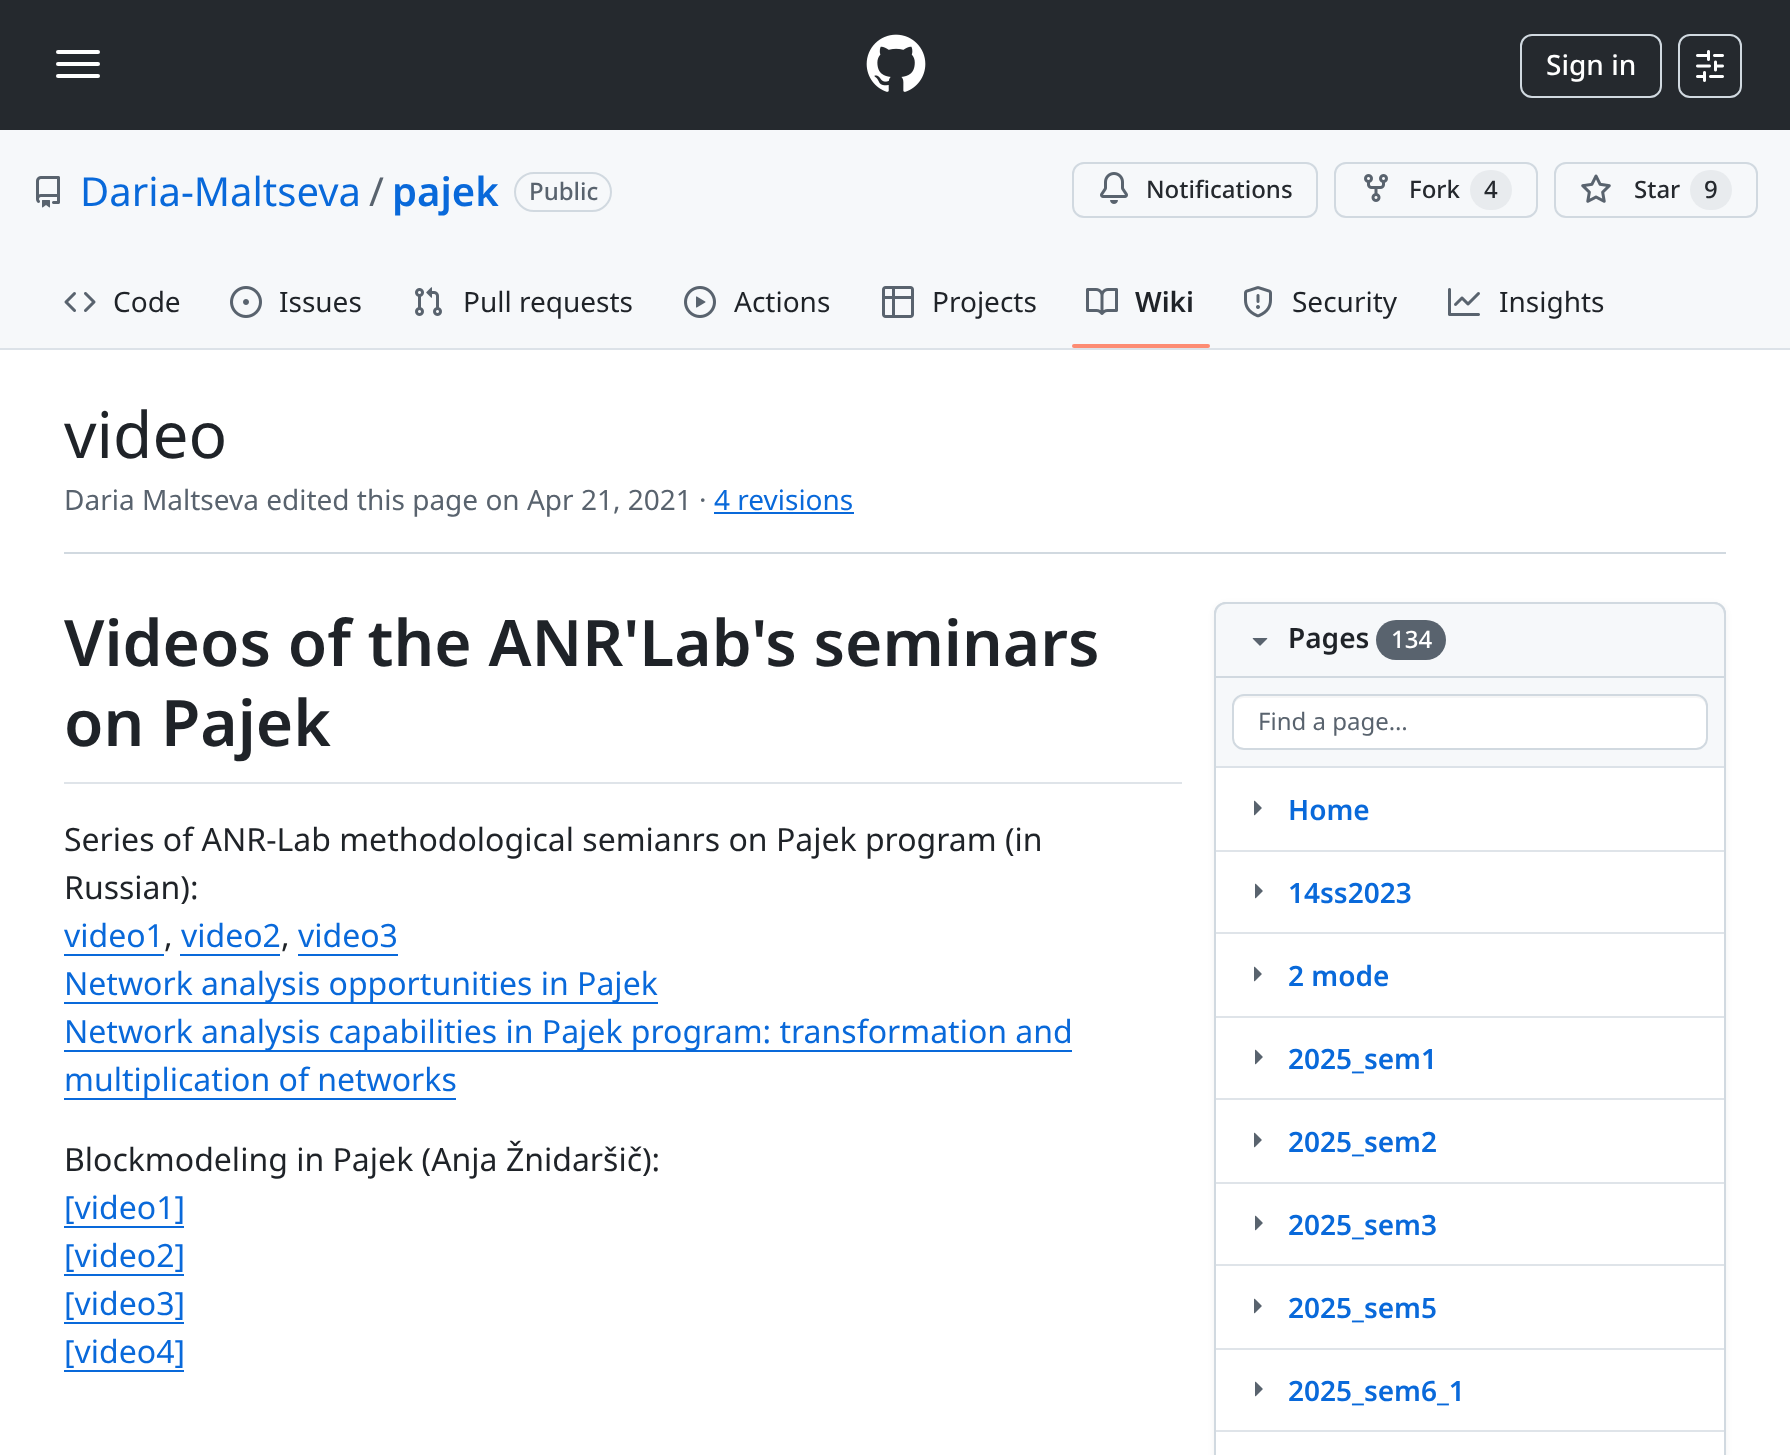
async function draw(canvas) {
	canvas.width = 1790;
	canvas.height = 1455;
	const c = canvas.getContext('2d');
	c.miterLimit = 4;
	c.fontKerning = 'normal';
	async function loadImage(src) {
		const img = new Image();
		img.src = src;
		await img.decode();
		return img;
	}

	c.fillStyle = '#fff';
	c.fillRect(0, 0, 1790, 1455);
	c.fillStyle = '#25292e';
	c.fillRect(0, 0, 1790, 130);
	c.fillStyle = '#fff';
	c.beginPath();
	c.roundRect(56, 50, 44, 4, 2);
	c.fill();
	c.beginPath();
	c.roundRect(56, 62, 44, 4, 2);
	c.fill();
	c.beginPath();
	c.roundRect(56, 74, 44, 4, 2);
	c.fill();
	c.drawImage(await loadImage('img1.png'), 866, 34, 60, 58);
	c.beginPath();
	c.roundRect(1521, 35, 140, 62, 11);
	c.strokeStyle = '#d1d9e0';
	c.lineWidth = 2;
	c.stroke();
	c.font = '500 28px Noto Sans';
	c.fillText('Sign in', 1546, 75);
	c.beginPath();
	c.roundRect(1679, 35, 62, 62, 11);
	c.stroke();
	c.drawImage(await loadImage('img2.png'), 1696, 50, 28, 32);
	c.fillStyle = '#f6f8fa';
	c.fillRect(0, 130, 1790, 218);
	c.drawImage(await loadImage('img3.png'), 36, 176, 24, 32);
	c.font = '40px Noto Sans';
	c.fillStyle = '#0969da';
	c.fillText('Daria-Maltseva', 80, 206);
	c.fillStyle = '#59636e';
	c.fillText('/', 369, 206);
	c.font = '600 40px Noto Sans';
	c.fillStyle = '#0969da';
	c.fillText('pajek', 392, 206);
	c.beginPath();
	c.roundRect(515, 173, 96, 38, 19);
	c.stroke();
	c.font = '500 24px Noto Sans';
	c.fillStyle = '#59636e';
	c.fillText('Public', 529, 200);
	c.beginPath();
	c.roundRect(1073, 163, 244, 54, 11);
	c.stroke();
	c.drawImage(await loadImage('img4.png'), 1100, 172, 28, 32);
	c.fillStyle = '#25292e';
	c.fillText('Notifications', 1146, 198);
	c.beginPath();
	c.roundRect(1335, 163, 202, 54, 11);
	c.stroke();
	c.drawImage(await loadImage('img5.png'), 1364, 174, 24, 28);
	c.fillText('Fork', 1409, 198);
	c.fillStyle = '#e8ebee';
	c.beginPath();
	c.roundRect(1470, 170, 42, 40, 20);
	c.fill();
	c.fillStyle = '#25292e';
	c.fillText('4', 1484, 198);
	c.beginPath();
	c.roundRect(1555, 163, 202, 54, 11);
	c.stroke();
	c.drawImage(await loadImage('img6.png'), 1581, 174, 30, 29);
	c.fillText('Star', 1634, 198);
	c.fillStyle = '#e8ebee';
	c.beginPath();
	c.roundRect(1690, 170, 42, 40, 20);
	c.fill();
	c.fillStyle = '#25292e';
	c.fillText('9', 1704, 198);
	c.fillStyle = '#dce2e8';
	c.fillRect(0, 348, 1790, 2);
	c.drawImage(await loadImage('img7.png'), 64, 292, 32, 20);
	c.font = '28px Noto Sans';
	c.fillStyle = '#1f2328';
	c.fillText('Code', 113, 312);
	c.drawImage(await loadImage('img8.png'), 230, 286, 32, 32);
	c.fillText('Issues', 279, 312);
	c.drawImage(await loadImage('img9.png'), 415, 287, 27, 29);
	c.fillText('Pull requests', 463, 312);
	c.drawImage(await loadImage('img10.png'), 684, 286, 32, 32);
	c.fillText('Actions', 734, 312);
	c.drawImage(await loadImage('img11.png'), 882, 286, 32, 32);
	c.fillText('Projects', 932, 312);
	c.drawImage(await loadImage('img12.png'), 1086, 288, 32, 27);
	c.font = '600 28px Noto Sans';
	c.fillText('Wiki', 1135, 312);
	c.fillStyle = '#fd8c73';
	c.beginPath();
	c.roundRect(1072, 344, 138, 4, 2);
	c.fill();
	c.drawImage(await loadImage('img13.png'), 1244, 286, 28, 32);
	c.font = '28px Noto Sans';
	c.fillStyle = '#1f2328';
	c.fillText('Security', 1292, 312);
	c.drawImage(await loadImage('img14.png'), 1448, 288, 32, 28);
	c.fillText('Insights', 1499, 312);
	c.font = '64px Noto Sans';
	c.fillText('video', 64, 458);
	c.fillStyle = '#d1d9e0';
	c.fillRect(64, 552, 1662, 2);
	c.font = '28px Noto Sans';
	c.fillStyle = '#59636e';
	c.fillText('Daria Maltseva edited this page on Apr 21, 2021 ·', 64, 510);
	c.fillStyle = '#0969da';
	c.fillText('4 revisions', 714, 510);
	c.fillRect(714, 512, 140, 2);
	c.fillStyle = '#dfe4e9';
	c.fillRect(64, 782, 1118, 2);
	c.font = '600 64px Noto Sans';
	c.fillStyle = '#1f2328';
	c.fillText('Videos of the ANR\'Lab\'s seminars', 64, 666);
	c.fillText('on Pajek', 64, 746);
	c.font = '32px Noto Sans';
	c.fillText('Series of ANR-Lab methodological semianrs on Pajek program (in', 64, 851);
	c.fillText('Russian):', 64, 899);
	c.fillStyle = '#0969da';
	c.fillText('video1', 64, 947);
	c.fillRect(64, 954, 100, 2);
	c.fillStyle = '#1f2328';
	c.fillText(',', 164, 947);
	c.fillStyle = '#0969da';
	c.fillText('video2', 181, 947);
	c.fillRect(180, 954, 100, 2);
	c.fillStyle = '#1f2328';
	c.fillText(',', 281, 947);
	c.fillStyle = '#0969da';
	c.fillText('video3', 298, 947);
	c.fillRect(298, 954, 100, 2);
	c.fillRect(64, 1002, 594, 2);
	c.fillText('Network analysis opportunities in Pajek', 64, 995);
	c.fillRect(64, 1050, 1008, 2);
	c.fillText('Network analysis capabilities in Pajek program: transformation and', 64, 1043);
	c.fillRect(64, 1098, 392, 2);
	c.fillText('multiplication of networks', 64, 1091);
	c.fillStyle = '#1f2328';
	c.fillText('Blockmodeling in Pajek (Anja Žnidaršič):', 64, 1171);
	c.fillStyle = '#0969da';
	c.fillText('[video1]', 64, 1219);
	c.fillRect(64, 1226, 120, 2);
	c.fillText('[video2]', 64, 1267);
	c.fillRect(64, 1274, 120, 2);
	c.fillText('[video3]', 64, 1315);
	c.fillRect(64, 1322, 120, 2);
	c.fillText('[video4]', 64, 1363);
	c.fillRect(64, 1370, 120, 2);
	c.fillStyle = '#1f23280f';
	c.filter = 'blur(3px)';
	c.beginPath();
	c.roundRect(1214, 604, 512, 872, 12);
	c.fill();
	c.filter = 'none';
	c.fillStyle = '#fff';
	c.beginPath();
	c.roundRect(1215, 603, 510, 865, 11);
	c.fill();
	c.stroke();
	c.fillStyle = '#f6f8fa';
	c.beginPath();
	c.roundRect(1215, 603, 510, 74, [11, 11, 0, 0]);
	c.fill();
	c.stroke();
	c.drawImage(await loadImage('img15.png'), 1252, 638, 16, 8);
	c.font = '600 28px Noto Sans';
	c.fillStyle = '#1f2328';
	c.fillText('Pages', 1288, 648);
	c.fillStyle = '#59636e';
	c.beginPath();
	c.roundRect(1376, 620, 70, 40, 20);
	c.fill();
	c.font = '500 24px Noto Sans';
	c.fillStyle = '#fff';
	c.fillText('134', 1391, 648);
	c.fillStyle = '#f6f8fa';
	c.fillRect(1216, 678, 508, 88);
	c.fillStyle = '#dce2e8';
	c.fillRect(1216, 766, 508, 2);
	c.fillStyle = '#fff';
	c.beginPath();
	c.roundRect(1232, 694, 476, 56, 12);
	c.fill();
	c.fillStyle = '#f6f6f6';
	c.beginPath();
	c.moveTo(1244, 698);
	c.lineTo(1696, 698);
	c.bezierCurveTo(1702, 698, 1706, 702, 1706, 708);
	c.lineTo(1706, 706);
	c.bezierCurveTo(1706, 700, 1702, 696, 1696, 696);
	c.lineTo(1244, 696);
	c.bezierCurveTo(1238, 696, 1234, 700, 1234, 706);
	c.lineTo(1234, 708);
	c.bezierCurveTo(1234, 702, 1238, 698, 1244, 698);
	c.closePath();
	c.fill();
	c.beginPath();
	c.roundRect(1233, 695, 474, 54, 11);
	c.stroke();
	c.font = '24px Noto Sans';
	c.fillStyle = '#59636e';
	c.fillText('Find a page…', 1258, 730);
	c.drawImage(await loadImage('img16.png'), 1254, 800, 8, 16);
	c.font = '600 28px Noto Sans';
	c.fillStyle = '#0969da';
	c.fillText('Home', 1288, 820);
	c.fillStyle = '#dfe4e9';
	c.fillRect(1216, 850, 508, 2);
	c.drawImage(await loadImage('img16.png'), 1255, 883, 8, 16);
	c.fillStyle = '#0969da';
	c.fillText('14ss2023', 1288, 903);
	c.fillStyle = '#dfe4e9';
	c.fillRect(1216, 932, 508, 2);
	c.drawImage(await loadImage('img16.png'), 1254, 966, 8, 16);
	c.fillStyle = '#0969da';
	c.fillText('2 mode', 1288, 986);
	c.fillStyle = '#dfe4e9';
	c.fillRect(1216, 1016, 508, 2);
	c.drawImage(await loadImage('img16.png'), 1255, 1049, 8, 16);
	c.fillStyle = '#0969da';
	c.fillText('2025_sem1', 1288, 1069);
	c.fillStyle = '#dfe4e9';
	c.fillRect(1216, 1098, 508, 2);
	c.drawImage(await loadImage('img16.png'), 1254, 1132, 8, 16);
	c.fillStyle = '#0969da';
	c.fillText('2025_sem2', 1288, 1152);
	c.fillStyle = '#dfe4e9';
	c.fillRect(1216, 1182, 508, 2);
	c.drawImage(await loadImage('img16.png'), 1255, 1215, 8, 16);
	c.fillStyle = '#0969da';
	c.fillText('2025_sem3', 1288, 1235);
	c.fillStyle = '#dfe4e9';
	c.fillRect(1216, 1264, 508, 2);
	c.drawImage(await loadImage('img16.png'), 1254, 1298, 8, 16);
	c.fillStyle = '#0969da';
	c.fillText('2025_sem5', 1288, 1318);
	c.fillStyle = '#dfe4e9';
	c.fillRect(1216, 1348, 508, 2);
	c.drawImage(await loadImage('img16.png'), 1255, 1381, 8, 16);
	c.fillStyle = '#0969da';
	c.fillText('2025_sem6_1', 1288, 1401);
	c.fillStyle = '#dfe4e9';
	c.fillRect(1216, 1430, 508, 2);
}

draw(document.querySelector('canvas'));
